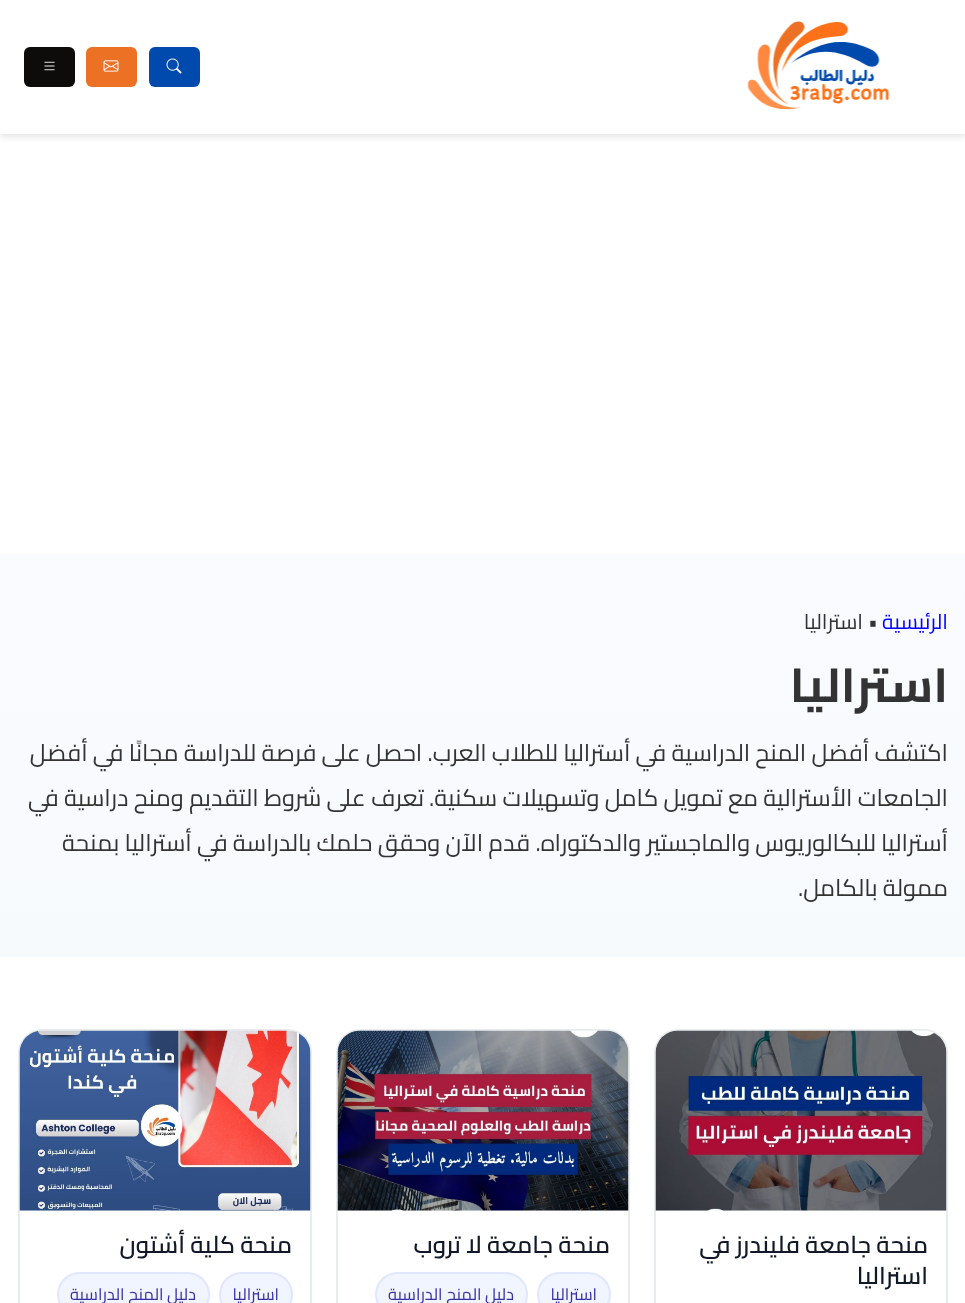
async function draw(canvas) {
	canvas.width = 965;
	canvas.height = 1303;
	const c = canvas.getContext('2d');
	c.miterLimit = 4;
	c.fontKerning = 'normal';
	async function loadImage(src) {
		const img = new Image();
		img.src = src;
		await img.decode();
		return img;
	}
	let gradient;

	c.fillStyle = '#fff';
	c.fillRect(0, 0, 965, 1303);
	c.fillStyle = '#0000001a';
	c.filter = 'blur(3px)';
	c.beginPath();
	c.rect(0, 3, 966, 134);
	c.fill();
	c.filter = 'none';
	c.fillStyle = '#fff';
	c.fillRect(0, 0, 965, 134);
	c.drawImage(await loadImage('img1.png'), 747, 21, 143, 89);
	c.fillStyle = '#004aad';
	c.beginPath();
	c.roundRect(149, 47, 51, 40, 6);
	c.fill();
	c.drawImage(await loadImage('img2.png'), 166, 58, 16, 16);
	c.fillStyle = '#ed7124';
	c.beginPath();
	c.roundRect(86, 47, 51, 40, 6);
	c.fill();
	c.drawImage(await loadImage('img3.png'), 103, 60, 16, 12);
	c.fillStyle = '#0e0c0b';
	c.beginPath();
	c.roundRect(24, 47, 51, 40, 6);
	c.fill();
	c.drawImage(await loadImage('img4.png'), 44, 61, 11, 10);
	gradient = c.createLinearGradient(483, 554, 483, 957);
	gradient.addColorStop(0, '#f9fbff');
	gradient.addColorStop(1, '#f7fafc');
	c.fillStyle = gradient;
	c.fillRect(0, 554, 965, 403);
	c.direction = 'rtl';
	c.font = '21px Cairo';
	c.fillStyle = '#00f';
	c.fillText('الرئيسية', 948, 629);
	c.direction = 'ltr';
	c.fillStyle = '#333';
	c.fillText('•', 868, 629);
	c.direction = 'rtl';
	c.fillText('استراليا', 863, 629);
	c.font = 'bold 47.5px Cairo';
	c.fillText('استراليا', 948, 702);
	c.font = '23.75px Cairo';
	for (const [text, x, y] of [
		['اكتشف أفضل المنح الدراسية في أستراليا للطلاب العرب. احصل على فرصة للدراسة مجانًا في أفضل', 948, 761],
		['الجامعات الأسترالية مع تمويل كامل وتسهيلات سكنية.', 948, 806],
		['تعرف على شروط التقديم ومنح دراسية في', 424, 806],
		['أستراليا', 948, 851],
		['للبكالوريوس والماجستير والدكتوراه. قدم الآن وحقق حلمك بالدراسة في أستراليا بمنحة', 876, 851],
		['ممولة بالكامل.', 948, 896],
	]) {
		c.fillText(text, x, y);
	}
	c.beginPath();
	c.roundRect(655, 1030, 292, 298, 23);
	c.strokeStyle = '#e9ecef';
	c.lineWidth = 2;
	c.stroke();
	c.fillStyle = '#f2f4f7';
	c.beginPath();
	c.roundRect(656, 1031, 291, 180, [23, 23, 0, 0]);
	c.fill();
	c.drawImage(await loadImage('img5.png'), 655, 1030, 292, 181);
	c.font = '600 24px Cairo';
	c.fillStyle = '#111827';
	c.fillText('منحة جامعة فليندرز في', 928, 1253);
	c.fillText('استراليا', 928, 1284);
	c.beginPath();
	c.roundRect(337, 1030, 292, 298, 23);
	c.stroke();
	c.fillStyle = '#f2f4f7';
	c.beginPath();
	c.roundRect(338, 1031, 291, 180, [23, 23, 0, 0]);
	c.fill();
	c.drawImage(await loadImage('img6.png'), 337, 1030, 292, 181);
	c.fillStyle = '#111827';
	c.fillText('منحة جامعة لا تروب', 610, 1253);
	c.fillStyle = '#f1f5ff';
	c.beginPath();
	c.roundRect(538, 1273, 72, 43, 21.5);
	c.fill();
	c.strokeStyle = '#e0e7ff';
	c.stroke();
	c.font = '16.5px Cairo';
	c.fillStyle = '#3730a3';
	c.fillText('استراليا', 597, 1300);
	c.fillStyle = '#f1f5ff';
	c.beginPath();
	c.roundRect(376, 1273, 151, 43, 21.5);
	c.fill();
	c.stroke();
	c.fillStyle = '#3730a3';
	c.fillText('دليل المنح الدراسية', 514, 1300);
	c.beginPath();
	c.roundRect(19, 1030, 292, 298, 23);
	c.strokeStyle = '#e9ecef';
	c.stroke();
	c.fillStyle = '#f2f4f7';
	c.beginPath();
	c.roundRect(20, 1031, 291, 180, [23, 23, 0, 0]);
	c.fill();
	c.drawImage(await loadImage('img7.png'), 19, 1030, 292, 181);
	c.font = '600 24px Cairo';
	c.fillStyle = '#111827';
	c.fillText('منحة كلية أشتون', 292, 1253);
	c.fillStyle = '#f1f5ff';
	c.beginPath();
	c.roundRect(220, 1273, 72, 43, 21.5);
	c.fill();
	c.strokeStyle = '#e0e7ff';
	c.stroke();
	c.font = '16.5px Cairo';
	c.fillStyle = '#3730a3';
	c.fillText('استراليا', 279, 1300);
	c.fillStyle = '#f1f5ff';
	c.beginPath();
	c.roundRect(58, 1273, 151, 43, 21.5);
	c.fill();
	c.stroke();
	c.fillStyle = '#3730a3';
	c.fillText('دليل المنح الدراسية', 196, 1300);
}

draw(document.querySelector('canvas'));
